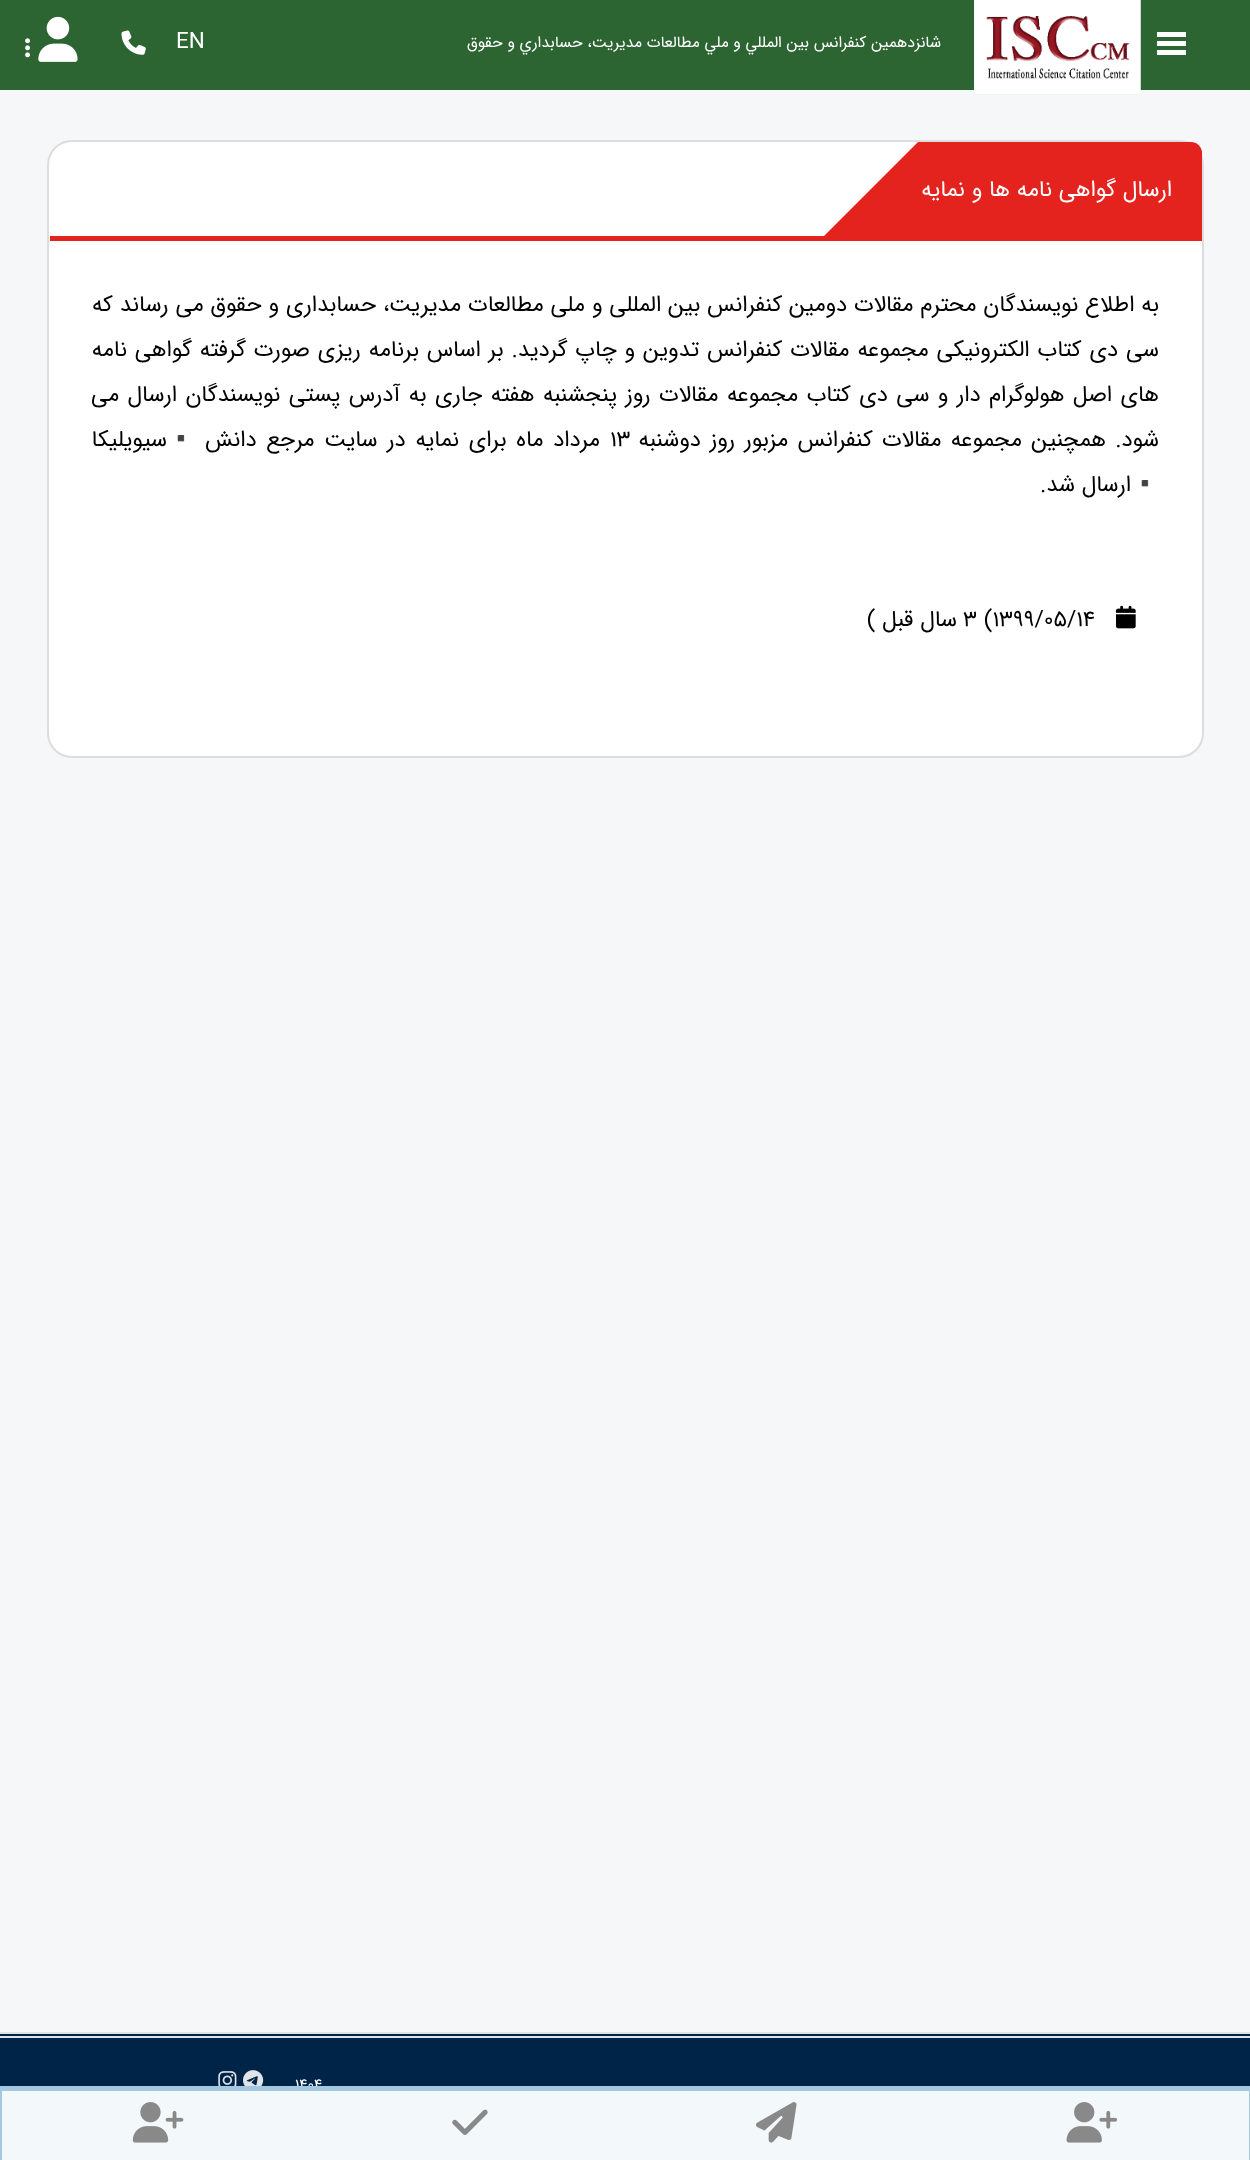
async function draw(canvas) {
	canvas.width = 1250;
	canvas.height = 2160;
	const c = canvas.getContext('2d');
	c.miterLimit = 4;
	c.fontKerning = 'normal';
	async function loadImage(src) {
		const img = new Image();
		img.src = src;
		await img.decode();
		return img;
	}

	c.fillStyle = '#f6f7f8';
	c.fillRect(0, 0, 1250, 2160);
	for (const [x, y, w, h, color] of [
		[0, 0, 1250, 90, '#2c6432'],
		[1157, 41, 29, 5, '#fff'],
		[1157, 32, 29, 5, '#fff'],
		[1157, 50, 29, 5, '#fff'],
	]) {
		c.fillStyle = color;
		c.fillRect(x, y, w, h);
	}
	c.drawImage(await loadImage('img1.png'), 974, 0, 167, 95);
	c.direction = 'rtl';
	c.font = '15.75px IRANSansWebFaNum';
	c.fillText('شانزدهمین كنفرانس بين المللي و ملي مطالعات مديريت، حسابداري و حقوق', 941, 47);
	c.direction = 'ltr';
	c.font = '22.5px IRANSansWebFaNum';
	c.fillText('EN', 176, 48);
	c.drawImage(await loadImage('img2.png'), 121, 30, 25, 25);
	c.drawImage(await loadImage('img3.png'), 38, 16, 40, 46);
	c.drawImage(await loadImage('img4.png'), 25, 38, 5, 20);
	c.beginPath();
	c.roundRect(48, 141, 1155, 616, 24);
	c.fill();
	c.strokeStyle = '#ddd';
	c.lineWidth = 2;
	c.stroke();
	c.fillStyle = '#e4231f';
	c.fillRect(50, 236, 774, 5);
	c.beginPath();
	c.roundRect(918, 142, 284, 99, [0, 11, 0, 0]);
	c.fill();
	c.direction = 'rtl';
	c.fillStyle = '#fff';
	c.fillText('ارسال گواهی نامه ها و نمایه', 1172, 196);
	c.fillStyle = '#e4231f';
	c.beginPath();
	c.moveTo(918, 241);
	c.lineTo(819, 241);
	c.lineTo(918, 142);
	c.closePath();
	c.fill();
	c.wordSpacing = '0.1px';
	c.fillStyle = '#000';
	c.fillText('به اطلاع نویسندگان محترم مقالات دومین کنفرانس بین المللی و ملی مطالعات مدیریت، حسابداری و حقوق می رساند که', 1159, 311);
	c.wordSpacing = '1.1px';
	c.fillText('سی دی کتاب الکترونیکی مجموعه مقالات کنفرانس تدوین و چاپ گردید. بر اساس برنامه ریزی صورت گرفته گواهی نامه', 1159, 356);
	c.wordSpacing = '1.7px';
	c.fillText('های اصل هولوگرام دار و سی دی کتاب مجموعه مقالات روز پنجشنبه هفته جاری به آدرس پستی نویسندگان ارسال می', 1159, 401);
	c.wordSpacing = '2.5px';
	c.fillText('شود. همچنین مجموعه مقالات کنفرانس مزبور روز دوشنبه', 1159, 446);
	c.wordSpacing = '0px';
	c.direction = 'ltr';
	c.fillText('۱۳', 610, 446);
	c.wordSpacing = '3px';
	c.direction = 'rtl';
	c.fillText('مرداد ماه برای نمایه در سایت مرجع دانش', 600, 446);
	c.wordSpacing = '0px';
	c.font = '22.5px Noto Color Emoji';
	c.fillText('▪️', 195, 446);
	c.font = '22.5px IRANSansWebFaNum';
	c.fillText('سیویلیکا', 167, 446);
	c.font = '22.5px Noto Color Emoji';
	c.fillText('▪️', 1159, 491);
	c.font = '22.5px IRANSansWebFaNum';
	c.fillText('ارسال شد.', 1131, 491);
	c.drawImage(await loadImage('img5.png'), 1116, 605, 20, 24);
	c.direction = 'ltr';
	c.fillText('3 (1399/05/14', 963, 626);
	c.direction = 'rtl';
	c.fillText('سال قبل )', 957, 626);
	for (const [x, y, w, h, color] of [
		[0, 2034, 1250, 52, '#002448'],
		[0, 2032, 1250, 2, '#e2e3e4'],
		[0, 2036, 1250, 2, '#e2e3e4'],
	]) {
		c.fillStyle = color;
		c.fillRect(x, y, w, h);
	}
	c.direction = 'ltr';
	c.font = '15px IRANSansWebFaNum';
	c.fillStyle = '#fff';
	c.fillText('۱۴۰۴', 295, 2089);
	c.drawImage(await loadImage('img6.png'), 243, 2070, 21, 16);
	c.drawImage(await loadImage('img7.png'), 218, 2071, 19, 15);
	for (const [x, y, w, h, color] of [
		[2, 2091, 1247, 69, '#f3f8fa'],
		[0, 2086, 1250, 5, '#a4c7e2'],
		[1249, 2086, 1, 74, '#a4c7e2'],
		[0, 2086, 2, 74, '#a4c7e2'],
	]) {
		c.fillStyle = color;
		c.fillRect(x, y, w, h);
	}
	c.drawImage(await loadImage('img8.png'), 1066, 2102, 52, 41);
	c.drawImage(await loadImage('img9.png'), 756, 2102, 41, 41);
	c.drawImage(await loadImage('img10.png'), 452, 2109, 36, 26);
	c.drawImage(await loadImage('img11.png'), 132, 2102, 52, 41);
}

draw(document.querySelector('canvas'));
